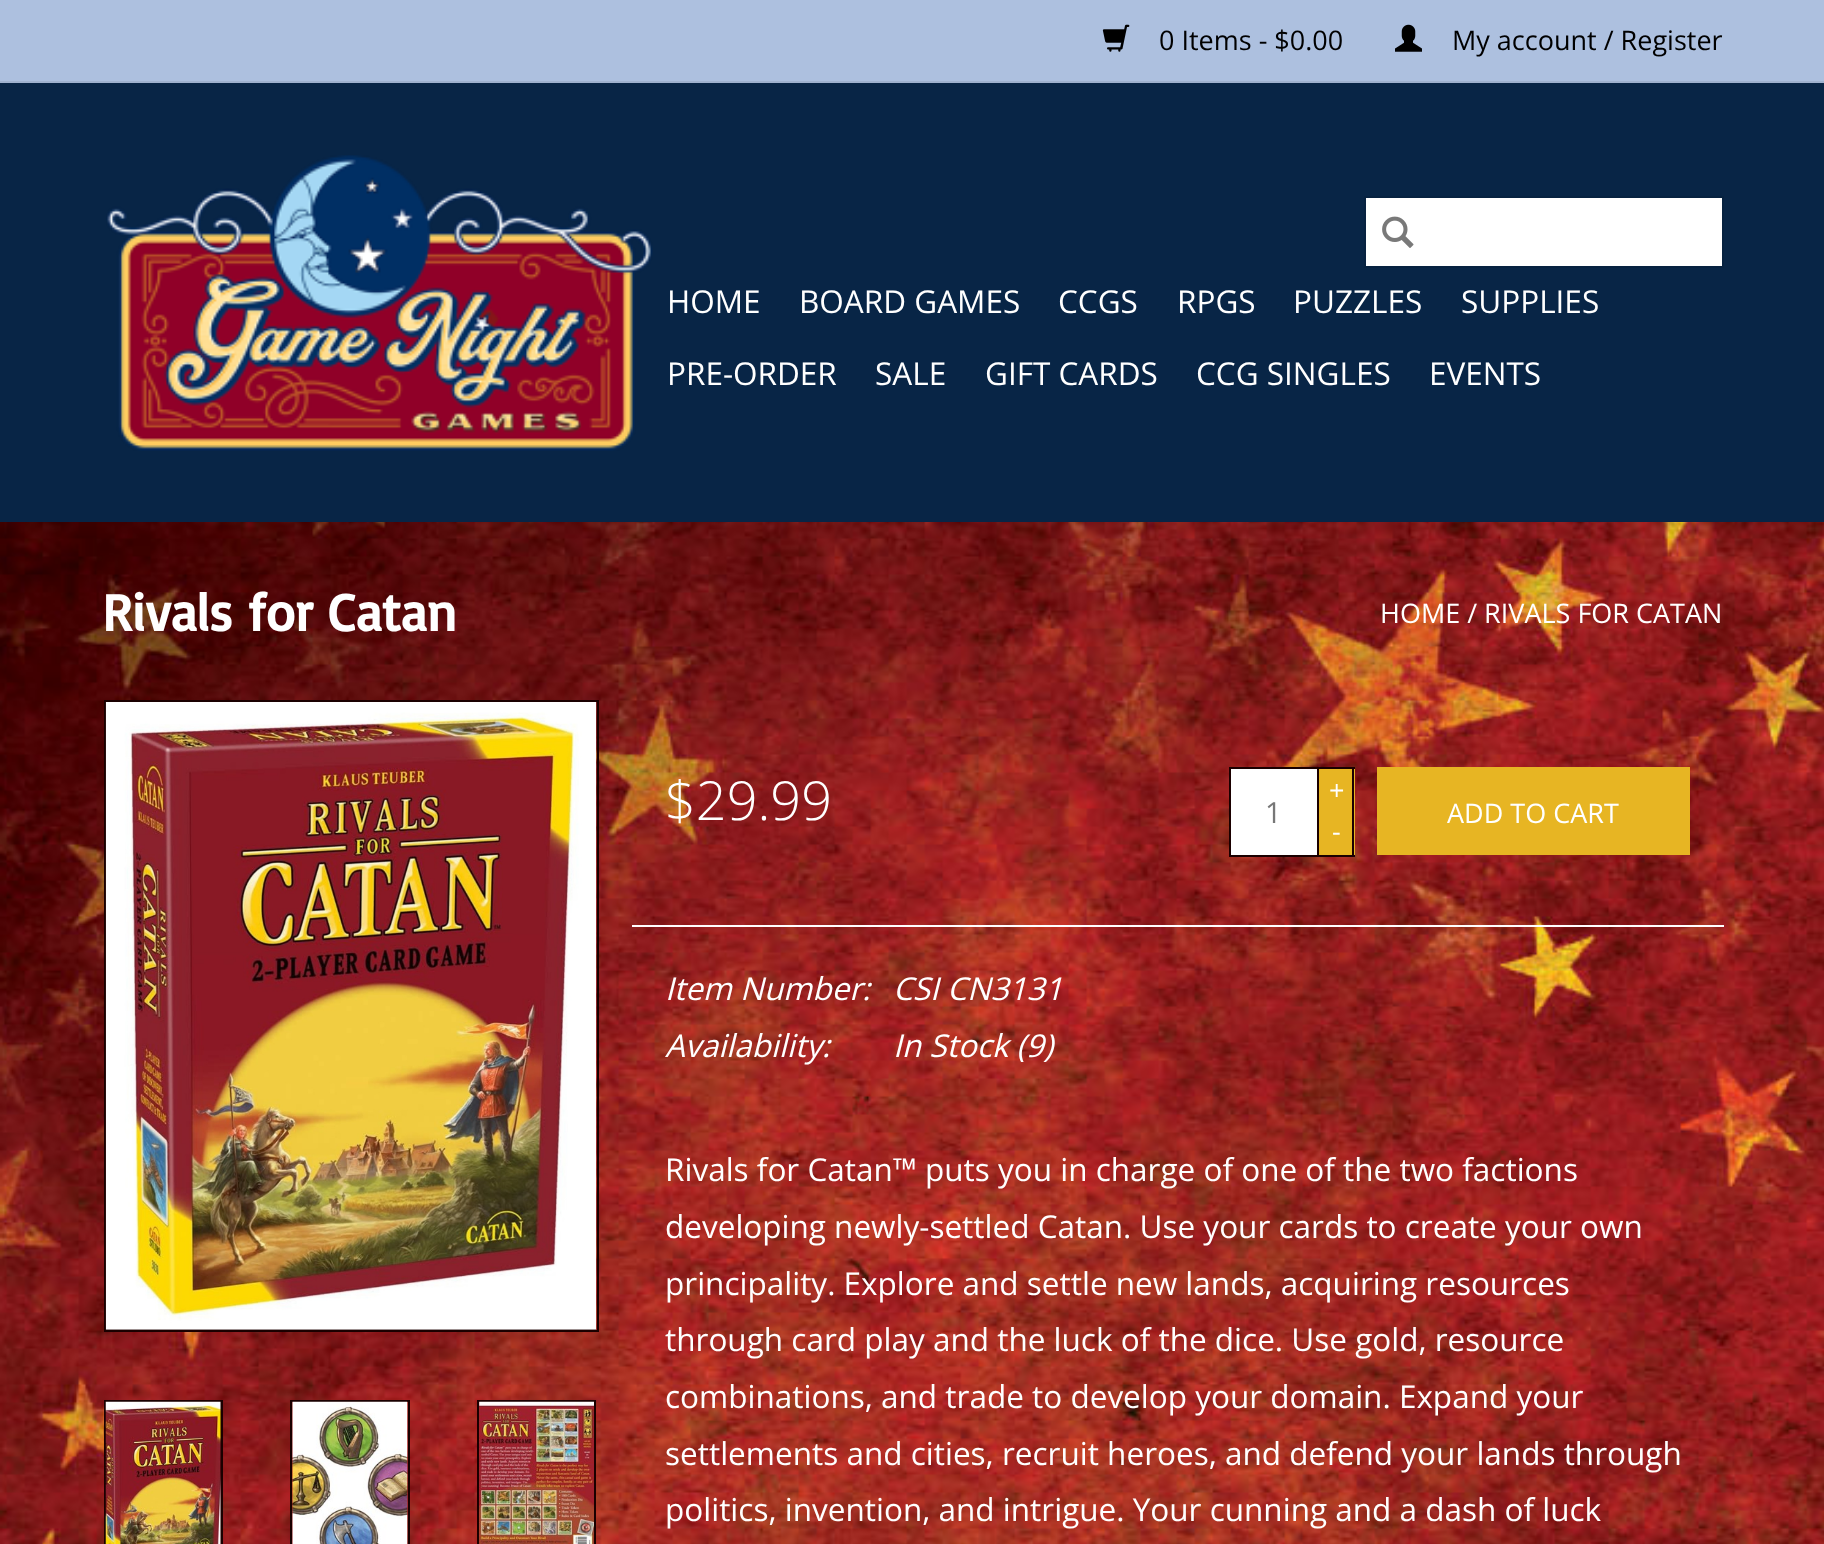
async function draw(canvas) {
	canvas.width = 1824;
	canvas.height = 1544;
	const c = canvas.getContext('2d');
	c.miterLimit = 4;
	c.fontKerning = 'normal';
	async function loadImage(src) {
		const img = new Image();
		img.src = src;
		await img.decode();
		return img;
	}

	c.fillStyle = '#fff';
	c.fillRect(0, 0, 1824, 1544);
	c.drawImage(await loadImage('img1.png'), 0, 522, 1824, 1022);
	for (const [x, y, w, h, color] of [
		[0, 83, 1824, 439, '#082546'],
		[0, 0, 1824, 81, '#adc0df'],
		[0, 81, 1824, 2, '#a0b2cf'],
	]) {
		c.fillStyle = color;
		c.fillRect(x, y, w, h);
	}
	c.drawImage(await loadImage('img2.png'), 1102, 24, 28, 28);
	c.font = '27px Open Sans';
	c.fillStyle = '#000';
	c.fillText('0 Items - $0.00', 1159, 50);
	c.drawImage(await loadImage('img3.png'), 1395, 24, 27, 28);
	c.fillText('My account / Register', 1452, 50);
	c.drawImage(await loadImage('img4.png'), 106, 155, 547, 296);
	c.fillStyle = '#fff';
	c.beginPath();
	c.rect(1365, 197, 358, 70);
	c.fill();
	c.strokeStyle = '#072240';
	c.lineWidth = 2;
	c.stroke();
	c.drawImage(await loadImage('img5.png'), 1382, 216, 32, 32);
	c.font = '31.5px Open Sans';
	for (const [text, x, y] of [
		['HOME', 667, 313],
		['BOARD GAMES', 799, 313],
		['CCGS', 1058, 313],
		['RPGS', 1177, 313],
		['PUZZLES', 1293, 313],
		['SUPPLIES', 1461, 313],
		['PRE-ORDER', 667, 385],
		['SALE', 875, 385],
		['GIFT CARDS', 985, 385],
		['CCG SINGLES', 1196, 385],
		['EVENTS', 1429, 385],
	]) {
		c.fillText(text, x, y);
	}
	c.font = 'bold 53.25px Basic';
	c.fillText('Rivals for Catan', 102, 631);
	c.font = '27px Open Sans';
	c.fillText('HOME / RIVALS FOR CATAN', 1380, 623);
	c.strokeStyle = '#1a0000';
	c.strokeRect(105, 701, 493, 630);
	c.fillStyle = '#1c0000';
	c.fillRect(106, 1329, 490, 1);
	c.drawImage(await loadImage('img6.png'), 105, 702, 492, 628);
	c.strokeRect(105, 1401, 117, 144);
	c.fillRect(220, 1402, 1, 142);
	c.drawImage(await loadImage('img7.png'), 105, 1401, 116, 143);
	c.strokeRect(291, 1401, 118, 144);
	c.drawImage(await loadImage('img8.png'), 292, 1401, 116, 143);
	c.strokeRect(478, 1401, 117, 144);
	c.drawImage(await loadImage('img9.png'), 479, 1401, 115, 143);
	c.font = '300 54px Open Sans';
	c.fillStyle = '#fff';
	c.fillText('$29.99', 665, 820);
	c.beginPath();
	c.rect(1230, 768, 88, 88);
	c.fill();
	c.stroke();
	c.font = '29px Open Sans';
	c.fillStyle = '#777';
	c.fillText('1', 1265, 823);
	for (const [x, y, w, h, color] of [
		[1319, 769, 36, 86, '#e7b523'],
		[1319, 767, 36, 2, '#1a0000'],
		[1352, 767, 2, 90, '#1a0000'],
		[1319, 855, 36, 2, '#1a0000'],
	]) {
		c.fillStyle = color;
		c.fillRect(x, y, w, h);
	}
	c.font = '27px Open Sans';
	c.fillStyle = '#fff';
	c.fillText('+', 1329, 800);
	c.fillText('-', 1332, 841);
	c.fillStyle = '#e7b523';
	c.fillRect(1377, 767, 313, 88);
	c.fillStyle = '#fff';
	c.fillText('ADD TO CART', 1447, 823);
	c.fillRect(632, 925, 1092, 2);
	c.font = 'italic 31.5px Open Sans';
	for (const [text, x, y] of [
		['Item Number:', 665, 1000],
		['CSI CN3131', 893, 1000],
		['Availability:', 665, 1057],
		['In Stock (9)', 893, 1057],
	]) {
		c.fillText(text, x, y);
	}
	c.font = '31.5px Open Sans';
	for (const [text, x, y] of [
		['Rivals for Catan™ puts you in charge of one of the two factions', 665, 1181],
		['developing newly-settled Catan. Use your cards to create your own', 665, 1238],
		['principality. Explore and settle new lands, acquiring resources', 665, 1295],
		['through card play and the luck of the dice. Use gold, resource', 665, 1351],
		['combinations, and trade to develop your domain. Expand your', 665, 1408],
		['settlements and cities, recruit heroes, and defend your lands through', 665, 1465],
		['politics, invention, and intrigue. Your cunning and a dash of luck', 665, 1521],
	]) {
		c.fillText(text, x, y);
	}
}

draw(document.querySelector('canvas'));
